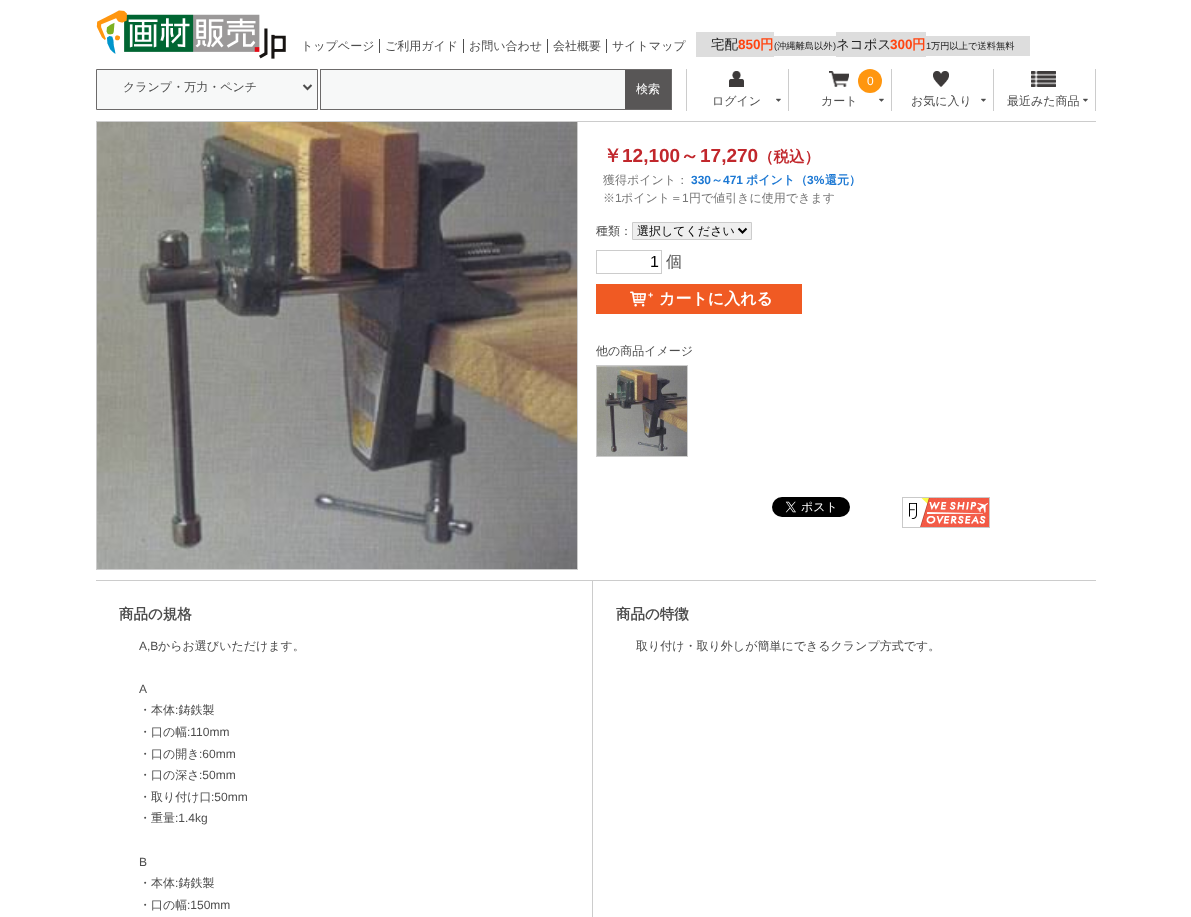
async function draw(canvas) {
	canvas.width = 1191;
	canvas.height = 917;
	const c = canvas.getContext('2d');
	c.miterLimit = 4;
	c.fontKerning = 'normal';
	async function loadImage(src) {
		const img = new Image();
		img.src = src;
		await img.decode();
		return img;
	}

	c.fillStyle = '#fff';
	c.fillRect(0, 0, 1191, 917);
	c.strokeStyle = '#ccc';
	c.strokeRect(96.5, 88.5, 481, 481);
	c.fillRect(96, 88, 482, 33);
	c.drawImage(await loadImage('img1.png'), 96, 10, 190, 49);
	c.font = '500 12px WenQuanYi Zen Hei';
	c.fillStyle = '#4d4d4d';
	c.fillText('トップページ', 301, 50);
	c.fillRect(379, 39, 1, 14);
	c.fillText('ご利用ガイド', 385, 50);
	c.fillRect(463, 39, 1, 14);
	c.fillText('お問い合わせ', 469, 50);
	c.fillRect(547, 39, 1, 14);
	c.fillText('会社概要', 553, 50);
	c.fillRect(606, 39, 1, 14);
	c.fillText('サイトマップ', 612, 50);
	c.fillStyle = '#ddd';
	c.fillRect(696, 32, 78, 25);
	c.font = '500 13.5px WenQuanYi Zen Hei';
	c.fillStyle = '#222';
	c.fillText('宅配', 711, 49);
	c.font = 'bold 13.5px Liberation Sans';
	c.fillStyle = '#ff4511';
	c.fillText('850', 738, 49);
	c.font = 'bold 13.5px WenQuanYi Zen Hei';
	c.fillText('円', 760, 49);
	c.fillStyle = '#ddd';
	c.fillRect(774, 36, 62, 20);
	c.font = '9.25px Liberation Sans';
	c.fillStyle = '#222';
	c.fillText('(', 774, 49);
	c.font = '500 9.25px WenQuanYi Zen Hei';
	c.fillText('沖縄離島以外', 777, 49);
	c.font = '9.25px Liberation Sans';
	c.fillText(')', 833, 49);
	c.fillStyle = '#ddd';
	c.fillRect(836, 32, 90, 25);
	c.font = '500 13.5px WenQuanYi Zen Hei';
	c.fillStyle = '#222';
	c.fillText('ネコポス', 836, 49);
	c.font = 'bold 13.5px Liberation Sans';
	c.fillStyle = '#ff4511';
	c.fillText('300', 890, 49);
	c.font = 'bold 13.5px WenQuanYi Zen Hei';
	c.fillText('円', 912, 49);
	c.fillStyle = '#ddd';
	c.fillRect(926, 36, 104, 20);
	c.font = '9.25px Liberation Sans';
	c.fillStyle = '#222';
	c.fillText('1', 926, 49);
	c.font = '500 9.25px WenQuanYi Zen Hei';
	c.fillText('万円以上で送料無料', 931, 49);
	c.fillStyle = '#ccc';
	c.fillRect(96, 121, 1000, 1);
	c.fillStyle = '#f7f8f8';
	c.beginPath();
	c.rect(96.5, 69.5, 221, 40);
	c.fill();
	c.strokeStyle = '#6c6a6a';
	c.stroke();
	c.beginPath();
	c.moveTo(303.5, 85);
	c.lineTo(307.5, 89);
	c.lineTo(311.5, 85);
	c.strokeStyle = '#4d4d4d';
	c.lineWidth = 2;
	c.stroke();
	c.font = '500 12px WenQuanYi Zen Hei';
	c.fillStyle = '#4d4d4d';
	c.fillText('クランプ・万力・ペンチ', 123, 91);
	c.fillStyle = '#f7f8f8';
	c.fillRect(321, 70, 304, 39);
	c.strokeStyle = '#6c6a6a';
	c.lineWidth = 1;
	c.strokeRect(320.5, 69.5, 351, 40);
	c.fillStyle = '#585656';
	c.fillRect(625, 70, 46, 39);
	c.fillStyle = '#fff';
	c.fillText('検索', 636, 93);
	c.fillStyle = '#ccc';
	c.fillRect(686, 69, 1, 42);
	c.drawImage(await loadImage('img2.png'), 729, 71, 15, 16);
	c.fillStyle = '#4d4d4d';
	c.fillText('ログイン', 712, 105);
	c.drawImage(await loadImage('img3.png'), 776, 98, 5, 4);
	c.fillStyle = '#ff960f';
	c.beginPath();
	c.arc(870, 81, 12, 0, 2 * Math.PI);
	c.fill();
	c.font = '12px Liberation Sans';
	c.fillStyle = '#fff';
	c.fillText('0', 867, 85);
	c.fillStyle = '#ccc';
	c.fillRect(788, 69, 1, 42);
	c.drawImage(await loadImage('img4.png'), 829, 71, 20, 16);
	c.font = '500 12px WenQuanYi Zen Hei';
	c.fillStyle = '#4d4d4d';
	c.fillText('カート', 821, 105);
	c.drawImage(await loadImage('img3.png'), 879, 98, 5, 4);
	c.fillStyle = '#ccc';
	c.fillRect(891, 69, 1, 42);
	c.drawImage(await loadImage('img5.png'), 933, 71, 16, 16);
	c.fillStyle = '#4d4d4d';
	c.fillText('お気に入り', 911, 105);
	c.drawImage(await loadImage('img3.png'), 981, 98, 5, 4);
	c.fillStyle = '#ccc';
	c.fillRect(1095, 69, 1, 42);
	c.fillRect(993, 69, 1, 42);
	c.drawImage(await loadImage('img6.png'), 1031, 71, 25, 16);
	c.fillStyle = '#4d4d4d';
	c.fillText('最近みた商品', 1007, 105);
	c.drawImage(await loadImage('img3.png'), 1083, 98, 5, 4);
	c.fillStyle = '#ccc';
	c.fillRect(96, 580, 1000, 1);
	c.drawImage(await loadImage('img7.png'), 97, 122, 480, 447);
	c.font = 'bold 19px WenQuanYi Zen Hei';
	c.fillStyle = '#c1272c';
	c.fillText('￥', 603, 162);
	c.font = 'bold 19px Liberation Sans';
	c.fillText('12,100', 622, 162);
	c.font = 'bold 19px WenQuanYi Zen Hei';
	c.fillText('～', 680, 162);
	c.font = 'bold 19px Liberation Sans';
	c.fillText('17,270', 700, 162);
	c.font = 'bold 15.5px WenQuanYi Zen Hei';
	c.fillText('（税込）', 758, 162);
	c.font = '500 12px WenQuanYi Zen Hei';
	c.fillStyle = '#777';
	c.fillText('獲得ポイント：', 603, 184);
	c.font = 'bold 12px Liberation Sans';
	c.fillStyle = '#1c78d3';
	c.fillText('330', 691, 184);
	c.font = 'bold 12px WenQuanYi Zen Hei';
	c.fillText('～', 711, 184);
	c.font = 'bold 12px Liberation Sans';
	c.fillText('471', 723, 184);
	c.font = 'bold 12px WenQuanYi Zen Hei';
	c.fillText('ポイント（', 746, 184);
	c.font = 'bold 12px Liberation Sans';
	c.fillText('3%', 807, 184);
	c.font = 'bold 12px WenQuanYi Zen Hei';
	c.fillText('還元）', 825, 184);
	c.font = '500 12px WenQuanYi Zen Hei';
	c.fillStyle = '#777';
	c.fillText('※', 603, 202);
	c.font = '12px Liberation Sans';
	c.fillText('1', 615, 202);
	c.font = '500 12px WenQuanYi Zen Hei';
	c.fillText('ポイント＝', 621, 202);
	c.font = '12px Liberation Sans';
	c.fillText('1', 682, 202);
	c.font = '500 12px WenQuanYi Zen Hei';
	c.fillText('円で値引きに使用できます', 689, 202);
	c.fillStyle = '#4d4d4d';
	c.fillText('種類：', 596, 235);
	c.fillStyle = '#efefef';
	c.beginPath();
	c.rect(632.5, 222.5, 119, 17);
	c.fill();
	c.strokeStyle = '#ccc';
	c.stroke();
	c.beginPath();
	c.moveTo(738.5, 228.5);
	c.lineTo(742.5, 232.5);
	c.lineTo(746.5, 228.5);
	c.strokeStyle = '#000';
	c.lineWidth = 2;
	c.stroke();
	c.fillStyle = '#000';
	c.fillText('選択してください', 637, 235);
	c.strokeStyle = '#ccc';
	c.lineWidth = 1;
	c.strokeRect(596.5, 250.5, 65, 23);
	c.font = '16px Liberation Sans';
	c.fillText('1', 650, 267);
	c.font = '500 16px WenQuanYi Zen Hei';
	c.fillStyle = '#4d4d4d';
	c.fillText('個', 666, 267);
	c.fillStyle = '#f05a23';
	c.fillRect(596, 284, 206, 30);
	c.drawImage(await loadImage('img8.png'), 630, 291, 16, 16);
	c.font = 'bold 9px Liberation Sans';
	c.fillStyle = '#fff';
	c.fillText('+', 648, 298);
	c.font = 'bold 16px WenQuanYi Zen Hei';
	c.fillText('カートに入れる', 659, 304);
	c.font = '500 12px WenQuanYi Zen Hei';
	c.fillStyle = '#4d4d4d';
	c.fillText('他の商品イメージ', 596, 355);
	c.strokeRect(596.5, 365.5, 91, 91);
	c.drawImage(await loadImage('img9.png'), 597, 366, 90, 90);
	c.drawImage(await loadImage('img10.png'), 772, 497, 78, 20);
	c.drawImage(await loadImage('img11.png'), 902, 497, 88, 31);
	c.fillStyle = '#ccc';
	c.fillRect(592, 581, 1, 336);
	c.font = 'bold 14.5px WenQuanYi Zen Hei';
	c.fillStyle = '#4d4d4d';
	c.fillText('商品の規格', 119, 619);
	c.font = '12px Liberation Sans';
	c.fillText('A,B', 139, 650);
	c.font = '500 12px WenQuanYi Zen Hei';
	c.fillText('からお選びいただけます。', 158, 650);
	c.font = '12px Liberation Sans';
	c.fillText('A', 139, 693);
	c.font = '500 12px WenQuanYi Zen Hei';
	c.fillText('・本体 鋳鉄製', 139, 714);
	c.font = '12px Liberation Sans';
	c.fillText(':', 175, 714);
	c.font = '500 12px WenQuanYi Zen Hei';
	c.fillText('・口の幅', 139, 736);
	c.font = '12px Liberation Sans';
	c.fillText(':110mm', 187, 736);
	c.font = '500 12px WenQuanYi Zen Hei';
	c.fillText('・口の開き', 139, 758);
	c.font = '12px Liberation Sans';
	c.fillText(':60mm', 199, 758);
	c.font = '500 12px WenQuanYi Zen Hei';
	c.fillText('・口の深さ', 139, 779);
	c.font = '12px Liberation Sans';
	c.fillText(':50mm', 199, 779);
	c.font = '500 12px WenQuanYi Zen Hei';
	c.fillText('・取り付け口', 139, 801);
	c.font = '12px Liberation Sans';
	c.fillText(':50mm', 211, 801);
	c.font = '500 12px WenQuanYi Zen Hei';
	c.fillText('・重量', 139, 822);
	c.font = '12px Liberation Sans';
	c.fillText(':1.4kg', 175, 822);
	c.fillText('B', 139, 866);
	c.font = '500 12px WenQuanYi Zen Hei';
	c.fillText('・本体 鋳鉄製', 139, 887);
	c.font = '12px Liberation Sans';
	c.fillText(':', 175, 887);
	c.font = '500 12px WenQuanYi Zen Hei';
	c.fillText('・口の幅', 139, 909);
	c.font = '12px Liberation Sans';
	c.fillText(':150mm', 187, 909);
	c.font = 'bold 14.5px WenQuanYi Zen Hei';
	c.fillText('商品の特徴', 616, 619);
	c.font = '500 12px WenQuanYi Zen Hei';
	c.fillText('取り付け・取り外しが簡単にできるクランプ方式です。', 636, 650);
}

draw(document.querySelector('canvas'));
